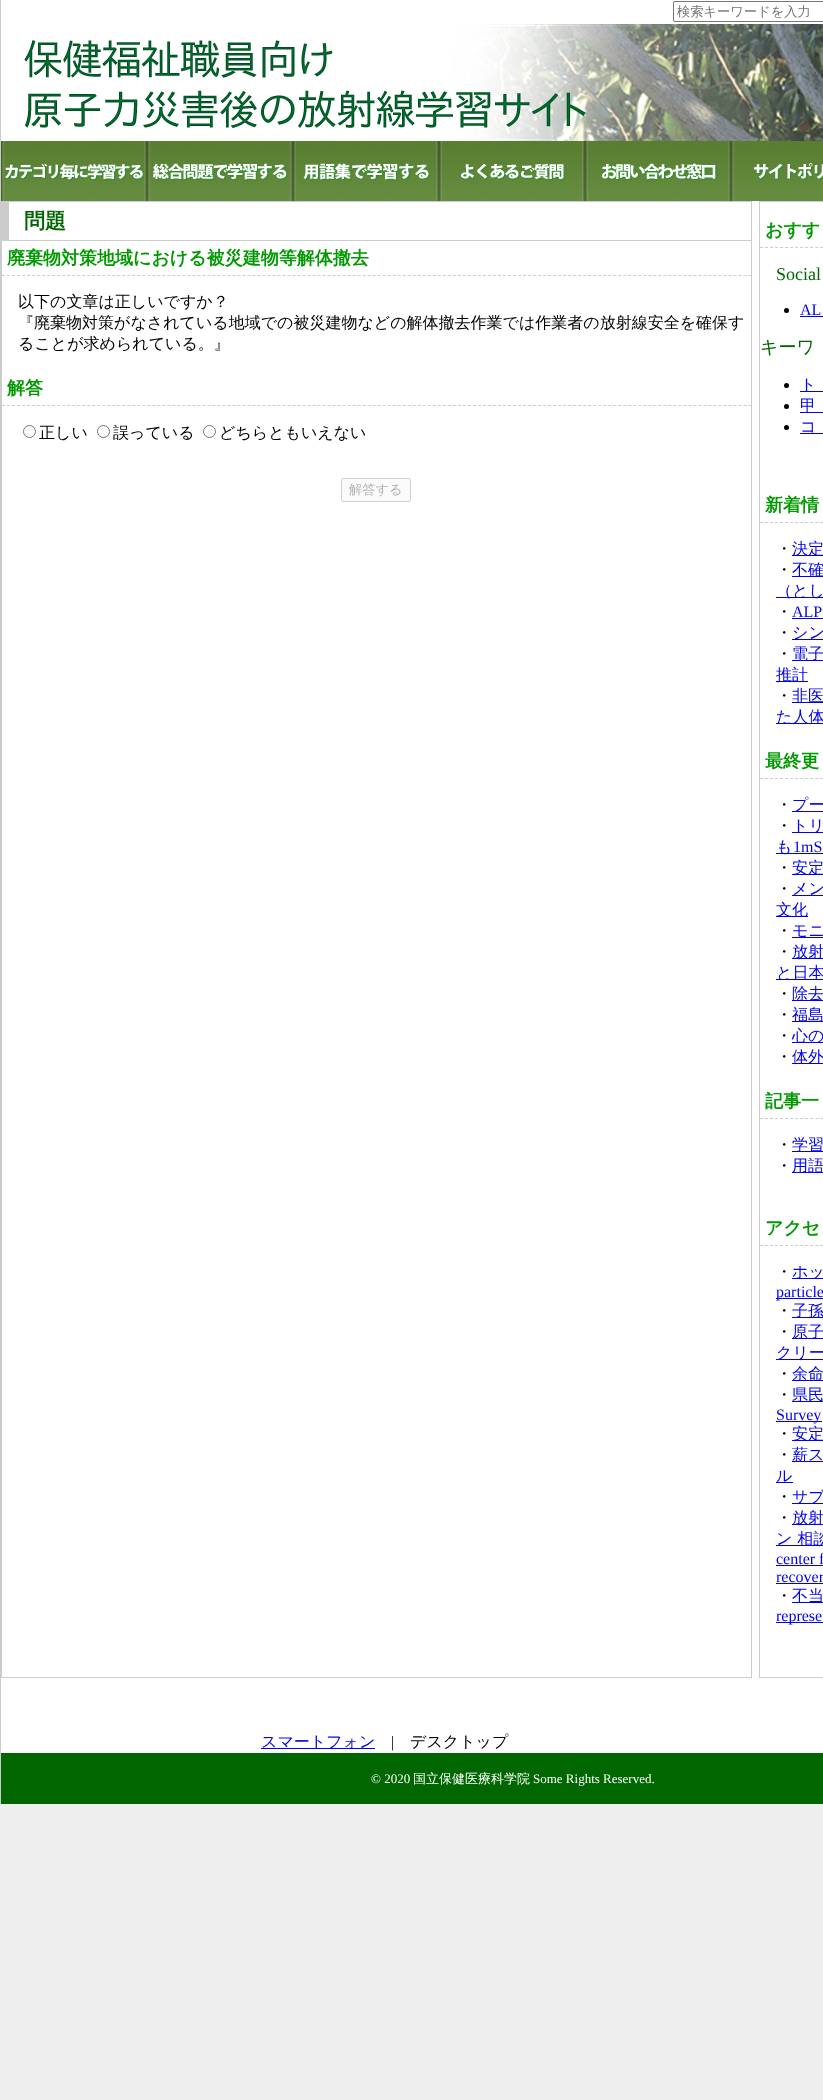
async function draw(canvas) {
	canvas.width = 823;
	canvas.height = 2100;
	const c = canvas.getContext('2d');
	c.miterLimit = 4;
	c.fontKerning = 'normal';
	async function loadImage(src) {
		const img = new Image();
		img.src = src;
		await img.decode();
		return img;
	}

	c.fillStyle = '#eee';
	c.fillRect(0, 0, 823, 2100);
	c.fillStyle = '#fff';
	c.fillRect(1, 0, 822, 1753);
	c.fillStyle = '#ccc';
	c.fillRect(0, 0, 1, 1804);
	c.beginPath();
	c.roundRect(673.5, 1.5, 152, 20, 1.5);
	c.strokeStyle = '#767676';
	c.stroke();
	c.font = '500 13.25px WenQuanYi Zen Hei';
	c.fillStyle = '#757575';
	c.fillText('検索キーワードを入力', 677, 16);
	c.drawImage(await loadImage('img1.png'), 24, 24, 799, 117);
	c.fillStyle = '#360';
	c.fillRect(1, 141, 822, 60);
	c.drawImage(await loadImage('img2.png'), 1, 141, 146, 60);
	c.drawImage(await loadImage('img3.png'), 147, 141, 146, 60);
	c.drawImage(await loadImage('img4.png'), 293, 141, 146, 60);
	c.drawImage(await loadImage('img5.png'), 439, 141, 146, 60);
	c.drawImage(await loadImage('img6.png'), 585, 141, 146, 60);
	c.drawImage(await loadImage('img7.png'), 731, 141, 92, 60);
	c.strokeStyle = '#ccc';
	c.strokeRect(1.5, 201.5, 750, 1476);
	c.fillStyle = '#ccc';
	c.beginPath();
	c.moveTo(751, 241);
	c.lineTo(2, 241);
	c.lineTo(9, 240);
	c.lineTo(751, 240);
	c.closePath();
	c.fill();
	c.fillStyle = '#00000033';
	c.beginPath();
	c.moveTo(2, 241);
	c.lineTo(2, 202);
	c.lineTo(9, 202);
	c.lineTo(9, 240);
	c.closePath();
	c.fill();
	c.font = 'bold 21px WenQuanYi Zen Hei';
	c.fillStyle = '#060';
	c.fillText('問題', 24, 228);
	c.beginPath();
	c.moveTo(2, 275.5);
	c.lineTo(751, 275.5);
	c.setLineDash([3, 2.01]);
	c.stroke();
	c.font = 'bold 18px WenQuanYi Zen Hei';
	c.fillStyle = '#090';
	c.fillText('廃棄物対策地域における被災建物等解体撤去', 7, 264);
	c.font = '500 16px WenQuanYi Zen Hei';
	c.fillStyle = '#000';
	for (const [text, x, y] of [
		['以下の文章は正しいですか？', 18, 307],
		['『廃棄物対策がなされている地域での被災建物などの解体撤去作業では作業者の放射線安全を確保す', 18, 328],
		['ることが求められている。』', 18, 349],
	]) {
		c.fillText(text, x, y);
	}
	c.beginPath();
	c.moveTo(2, 405.5);
	c.lineTo(751, 405.5);
	c.stroke();
	c.font = 'bold 18px WenQuanYi Zen Hei';
	c.fillStyle = '#090';
	c.fillText('解答', 7, 394);
	c.beginPath();
	c.arc(29.5, 431.5, 6, 0, 2 * Math.PI);
	c.strokeStyle = '#767676';
	c.setLineDash([]);
	c.stroke();
	c.font = '500 16px WenQuanYi Zen Hei';
	c.fillStyle = '#000';
	c.fillText('正しい', 39, 438);
	c.beginPath();
	c.arc(103.5, 431.5, 6, 0, 2 * Math.PI);
	c.stroke();
	c.fillText('誤っている', 113, 438);
	c.beginPath();
	c.arc(209.5, 431.5, 6, 0, 2 * Math.PI);
	c.stroke();
	c.fillText('どちらともいえない', 219, 438);
	c.fillStyle = '#fafafa';
	c.beginPath();
	c.roundRect(341.5, 478.5, 69, 23, 1.5);
	c.fill();
	c.strokeStyle = '#d2d2d2';
	c.stroke();
	c.font = '500 13.25px WenQuanYi Zen Hei';
	c.fillStyle = '#b4b4b4';
	c.fillText('解答する', 349, 494);
	c.strokeStyle = '#ccc';
	c.strokeRect(759.5, 201.5, 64, 1476);
	c.beginPath();
	c.moveTo(760, 247.5);
	c.lineTo(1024, 247.5);
	c.setLineDash([3, 2.02]);
	c.stroke();
	c.font = 'bold 18px WenQuanYi Zen Hei';
	c.fillStyle = '#090';
	c.fillText('おすす', 765, 236);
	c.font = '18px Liberation Serif';
	c.fillStyle = '#060';
	c.fillText('Social', 776, 280);
	c.fillStyle = '#000';
	c.beginPath();
	c.arc(786.5, 310.5, 2.5, 0, 2 * Math.PI);
	c.fill();
	c.font = '16px Liberation Serif';
	c.fillStyle = '#00e';
	c.fillText('AL', 800, 315);
	c.fillRect(800, 316, 23, 1);
	c.font = '500 18px WenQuanYi Zen Hei';
	c.fillStyle = '#060';
	c.fillText('キーワ', 760, 353);
	c.fillStyle = '#000';
	c.beginPath();
	c.arc(786.5, 385.5, 2.5, 0, 2 * Math.PI);
	c.fill();
	c.fillStyle = '#00e';
	c.fillRect(800, 391, 23, 1);
	c.font = '500 16px WenQuanYi Zen Hei';
	c.fillText('ト', 800, 390);
	c.fillStyle = '#000';
	c.beginPath();
	c.arc(786.5, 406.5, 2.5, 0, 2 * Math.PI);
	c.fill();
	c.fillStyle = '#00e';
	c.fillRect(800, 412, 23, 1);
	c.fillText('甲', 800, 411);
	c.fillStyle = '#000';
	c.beginPath();
	c.arc(786.5, 427.5, 2.5, 0, 2 * Math.PI);
	c.fill();
	c.fillStyle = '#00e';
	c.fillText('コ', 800, 432);
	c.fillRect(800, 433, 23, 1);
	c.beginPath();
	c.moveTo(760, 522.5);
	c.lineTo(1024, 522.5);
	c.stroke();
	c.font = 'bold 18px WenQuanYi Zen Hei';
	c.fillStyle = '#090';
	c.fillText('新着情', 765, 511);
	c.font = '500 16px WenQuanYi Zen Hei';
	c.fillStyle = '#000';
	c.fillText('・', 776, 554);
	c.fillStyle = '#00e';
	c.fillRect(792, 555, 31, 1);
	c.fillText('決定', 792, 554);
	c.fillStyle = '#000';
	c.fillText('・', 776, 575);
	c.fillStyle = '#00e';
	c.fillRect(792, 576, 31, 1);
	c.fillText('不確', 792, 575);
	c.fillRect(776, 597, 47, 1);
	c.fillText('（とし', 776, 596);
	c.fillStyle = '#000';
	c.fillText('・', 776, 617);
	c.font = '16px Liberation Serif';
	c.fillStyle = '#00e';
	c.fillText('ALP', 792, 617);
	c.fillRect(792, 618, 31, 1);
	c.font = '500 16px WenQuanYi Zen Hei';
	c.fillStyle = '#000';
	c.fillText('・', 776, 638);
	c.fillStyle = '#00e';
	c.fillRect(792, 639, 31, 1);
	c.fillText('シン', 792, 638);
	c.fillStyle = '#000';
	c.fillText('・', 776, 659);
	c.fillStyle = '#00e';
	c.fillRect(792, 660, 31, 1);
	c.fillText('電子', 792, 659);
	c.fillRect(776, 681, 32, 1);
	c.fillText('推計', 776, 680);
	c.fillStyle = '#000';
	c.fillText('・', 776, 701);
	c.fillStyle = '#00e';
	c.fillRect(792, 702, 31, 1);
	c.fillText('非医', 792, 701);
	c.fillRect(776, 723, 47, 1);
	c.fillText('た人体', 776, 722);
	c.beginPath();
	c.moveTo(760, 778.5);
	c.lineTo(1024, 778.5);
	c.stroke();
	c.font = 'bold 18px WenQuanYi Zen Hei';
	c.fillStyle = '#090';
	c.fillText('最終更', 765, 767);
	c.font = '500 16px WenQuanYi Zen Hei';
	c.fillStyle = '#000';
	c.fillText('・', 776, 810);
	c.fillStyle = '#00e';
	c.fillRect(792, 811, 31, 1);
	c.fillText('プー', 792, 810);
	c.fillStyle = '#000';
	c.fillText('・', 776, 831);
	c.fillStyle = '#00e';
	c.fillRect(792, 832, 31, 1);
	c.fillText('トリ', 792, 831);
	c.fillRect(776, 853, 47, 1);
	c.fillText('も', 776, 852);
	c.font = '16px Liberation Serif';
	c.fillText('1mS', 793, 852);
	c.font = '500 16px WenQuanYi Zen Hei';
	c.fillStyle = '#000';
	c.fillText('・', 776, 873);
	c.fillStyle = '#00e';
	c.fillRect(792, 874, 31, 1);
	c.fillText('安定', 792, 873);
	c.fillStyle = '#000';
	c.fillText('・', 776, 894);
	c.fillStyle = '#00e';
	c.fillRect(792, 895, 31, 1);
	c.fillText('メン', 792, 894);
	c.fillRect(776, 916, 32, 1);
	c.fillText('文化', 776, 915);
	c.fillStyle = '#000';
	c.fillText('・', 776, 936);
	c.fillStyle = '#00e';
	c.fillText('モニ', 792, 936);
	c.fillRect(792, 937, 31, 1);
	c.fillStyle = '#000';
	c.fillText('・', 776, 957);
	c.fillStyle = '#00e';
	c.fillRect(792, 958, 31, 1);
	c.fillText('放射', 792, 957);
	c.fillRect(776, 979, 47, 1);
	c.fillText('と日本', 776, 978);
	c.fillStyle = '#000';
	c.fillText('・', 776, 999);
	c.fillStyle = '#00e';
	c.fillRect(792, 1000, 31, 1);
	c.fillText('除去', 792, 999);
	c.fillStyle = '#000';
	c.fillText('・', 776, 1020);
	c.fillStyle = '#00e';
	c.fillRect(792, 1021, 31, 1);
	c.fillText('福島', 792, 1020);
	c.fillStyle = '#000';
	c.fillText('・', 776, 1041);
	c.fillStyle = '#00e';
	c.fillRect(792, 1042, 31, 1);
	c.fillText('心の', 792, 1041);
	c.fillStyle = '#000';
	c.fillText('・', 776, 1062);
	c.fillStyle = '#00e';
	c.fillRect(792, 1063, 31, 1);
	c.fillText('体外', 792, 1062);
	c.beginPath();
	c.moveTo(760, 1118.5);
	c.lineTo(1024, 1118.5);
	c.stroke();
	c.font = 'bold 18px WenQuanYi Zen Hei';
	c.fillStyle = '#090';
	c.fillText('記事一', 765, 1107);
	c.font = '500 16px WenQuanYi Zen Hei';
	c.fillStyle = '#000';
	c.fillText('・', 776, 1150);
	c.fillStyle = '#00e';
	c.fillRect(792, 1151, 31, 1);
	c.fillText('学習', 792, 1150);
	c.fillStyle = '#000';
	c.fillText('・', 776, 1171);
	c.fillStyle = '#00e';
	c.fillRect(792, 1172, 31, 1);
	c.fillText('用語', 792, 1171);
	c.beginPath();
	c.moveTo(760, 1245.5);
	c.lineTo(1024, 1245.5);
	c.stroke();
	c.font = 'bold 18px WenQuanYi Zen Hei';
	c.fillStyle = '#090';
	c.fillText('アクセ', 765, 1234);
	c.font = '500 16px WenQuanYi Zen Hei';
	c.fillStyle = '#000';
	c.fillText('・', 776, 1277);
	c.fillStyle = '#00e';
	c.fillRect(792, 1278, 31, 1);
	c.fillText('ホッ', 792, 1277);
	c.fillRect(776, 1298, 47, 1);
	c.font = '16px Liberation Serif';
	c.fillText('particle', 776, 1297);
	c.font = '500 16px WenQuanYi Zen Hei';
	c.fillStyle = '#000';
	c.fillText('・', 776, 1316);
	c.fillStyle = '#00e';
	c.fillRect(792, 1317, 31, 1);
	c.fillText('子孫', 792, 1316);
	c.fillStyle = '#000';
	c.fillText('・', 776, 1337);
	c.fillStyle = '#00e';
	c.fillRect(792, 1338, 31, 1);
	c.fillText('原子', 792, 1337);
	c.fillRect(776, 1359, 47, 1);
	c.fillText('クリー', 776, 1358);
	c.fillStyle = '#000';
	c.fillText('・', 776, 1379);
	c.fillStyle = '#00e';
	c.fillRect(792, 1380, 31, 1);
	c.fillText('余命', 792, 1379);
	c.fillStyle = '#000';
	c.fillText('・', 776, 1400);
	c.fillStyle = '#00e';
	c.fillRect(792, 1401, 31, 1);
	c.fillText('県民', 792, 1400);
	c.fillRect(776, 1421, 46, 1);
	c.font = '16px Liberation Serif';
	c.fillText('Survey', 776, 1420);
	c.font = '500 16px WenQuanYi Zen Hei';
	c.fillStyle = '#000';
	c.fillText('・', 776, 1439);
	c.fillStyle = '#00e';
	c.fillRect(792, 1440, 31, 1);
	c.fillText('安定', 792, 1439);
	c.fillStyle = '#000';
	c.fillText('・', 776, 1460);
	c.fillStyle = '#00e';
	c.fillRect(792, 1461, 31, 1);
	c.fillText('薪ス', 792, 1460);
	c.fillText('ル', 776, 1481);
	c.fillRect(776, 1482, 17, 1);
	c.fillStyle = '#000';
	c.fillText('・', 776, 1502);
	c.fillStyle = '#00e';
	c.fillRect(792, 1503, 31, 1);
	c.fillText('サブ', 792, 1502);
	c.fillStyle = '#000';
	c.fillText('・', 776, 1523);
	c.fillStyle = '#00e';
	c.fillRect(792, 1524, 31, 1);
	c.fillText('放射', 792, 1523);
	c.fillRect(776, 1545, 47, 1);
	c.fillText('ン 相談', 776, 1544);
	c.font = '16px Liberation Serif';
	c.fillText('center f', 776, 1564);
	c.fillRect(776, 1565, 47, 1);
	c.fillText('recover', 776, 1582);
	c.fillRect(776, 1583, 47, 1);
	c.font = '500 16px WenQuanYi Zen Hei';
	c.fillStyle = '#000';
	c.fillText('・', 776, 1601);
	c.fillStyle = '#00e';
	c.fillRect(792, 1602, 31, 1);
	c.fillText('不当', 792, 1601);
	c.fillRect(776, 1622, 47, 1);
	c.font = '16px Liberation Serif';
	c.fillText('represe', 776, 1621);
	c.fillRect(261, 1748, 114, 1);
	c.font = '500 16px WenQuanYi Zen Hei';
	c.fillText('スマートフォン', 261, 1747);
	c.font = '16px Liberation Serif';
	c.fillStyle = '#000';
	c.fillText('|', 391, 1747);
	c.font = '500 16px WenQuanYi Zen Hei';
	c.fillText('デスクトップ', 410, 1747);
	c.fillStyle = '#060';
	c.fillRect(1, 1753, 822, 51);
	c.font = '13px Liberation Serif';
	c.fillStyle = '#fff';
	c.fillText('© 2020', 371, 1783);
	c.font = '500 13px WenQuanYi Zen Hei';
	c.fillText('国立保健医療科学院', 413, 1783);
	c.font = '13px Liberation Serif';
	c.fillText('Some Rights Reserved.', 533, 1783);
}

draw(document.querySelector('canvas'));
